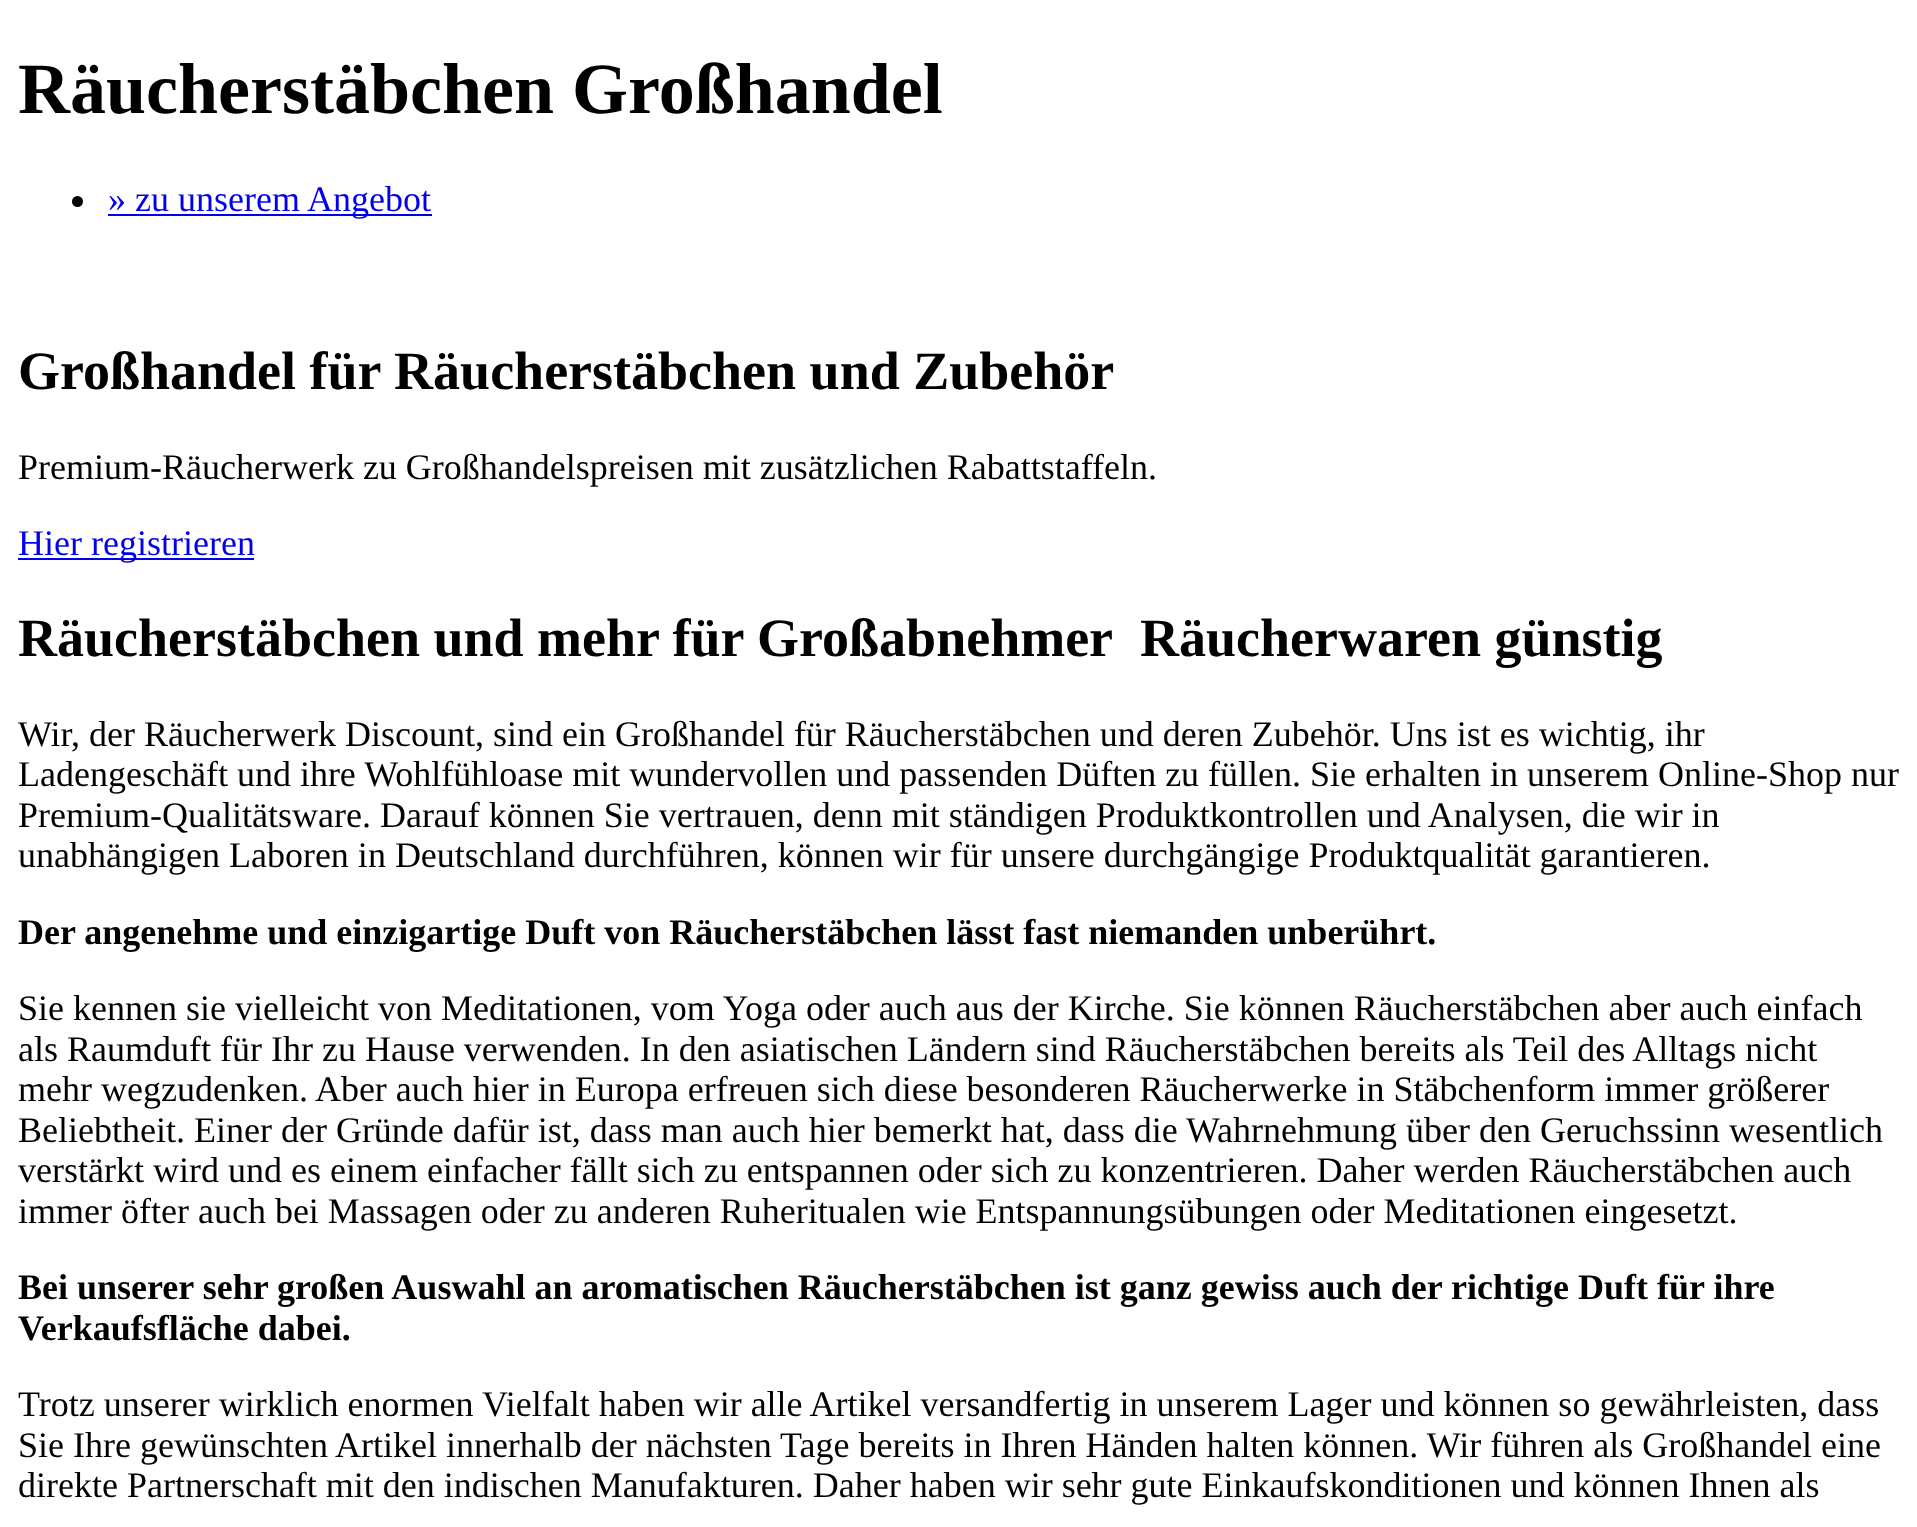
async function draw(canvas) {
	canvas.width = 1917;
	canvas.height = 1527;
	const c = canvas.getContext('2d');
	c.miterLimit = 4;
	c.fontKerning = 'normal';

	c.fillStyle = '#fff';
	c.fillRect(0, 0, 1917, 1527);
	c.font = 'bold 72px Liberation Serif';
	c.fillStyle = '#000';
	c.fillText('Räucherstäbchen Großhandel', 18, 113);
	c.beginPath();
	c.arc(77.5, 201.5, 5.5, 0, 2 * Math.PI);
	c.fill();
	c.fillStyle = '#00e';
	c.fillRect(108, 214, 324, 2);
	c.font = '36px Liberation Serif';
	c.fillText('» zu unserem Angebot', 108, 211);
	c.font = 'bold 54px Liberation Serif';
	c.fillStyle = '#000';
	c.fillText('Großhandel für Räucherstäbchen und Zubehör', 18, 389);
	c.font = '36px Liberation Serif';
	c.fillText('Premium-Räucherwerk zu Großhandelspreisen mit zusätzlichen Rabattstaffeln.', 18, 479);
	c.fillStyle = '#00e';
	c.fillRect(18, 558, 236, 2);
	c.fillText('Hier registrieren', 18, 555);
	c.font = 'bold 54px Liberation Serif';
	c.fillStyle = '#000';
	c.fillText('Räucherstäbchen und mehr für Großabnehmer', 18, 656);
	c.fillText('Räucherwaren günstig', 1140, 656);
	c.font = '36px Liberation Serif';
	for (const [text, x, y] of [
		['Wir, der Räucherwerk Discount, sind ein Großhandel für Räucherstäbchen und deren Zubehör. Uns ist es wichtig, ihr', 18, 746],
		['Ladengeschäft und ihre Wohlfühloase mit wundervollen und passenden Düften zu füllen. Sie erhalten in unserem Online-Shop nur', 18, 786],
		['Premium-Qualitätsware. Darauf können Sie vertrauen, denn mit ständigen Produktkontrollen und Analysen, die wir in', 18, 827],
		['unabhängigen Laboren in Deutschland durchführen, können wir für unsere durchgängige Produktqualität garantieren.', 18, 867],
	]) {
		c.fillText(text, x, y);
	}
	c.font = 'bold 36px Liberation Serif';
	c.fillText('Der angenehme und einzigartige Duft von Räucherstäbchen lässt fast niemanden unberührt.', 18, 944);
	c.font = '36px Liberation Serif';
	for (const [text, x, y] of [
		['Sie kennen sie vielleicht von Meditationen, vom Yoga oder auch aus der Kirche. Sie können Räucherstäbchen aber auch einfach', 18, 1020],
		['als Raumduft für Ihr zu Hause verwenden. In den asiatischen Ländern sind Räucherstäbchen bereits als Teil des Alltags nicht', 18, 1061],
		['mehr wegzudenken. Aber auch hier in Europa erfreuen sich diese besonderen Räucherwerke in Stäbchenform immer größerer', 18, 1101],
		['Beliebtheit. Einer der Gründe dafür ist, dass man auch hier bemerkt hat, dass die Wahrnehmung über den Geruchssinn wesentlich', 18, 1142],
		['verstärkt wird und es einem einfacher fällt sich zu entspannen oder sich zu konzentrieren. Daher werden Räucherstäbchen auch', 18, 1182],
		['immer öfter auch bei Massagen oder zu anderen Ruheritualen wie Entspannungsübungen oder Meditationen eingesetzt.', 18, 1223],
	]) {
		c.fillText(text, x, y);
	}
	c.font = 'bold 36px Liberation Serif';
	c.fillText('Bei unserer sehr großen Auswahl an aromatischen Räucherstäbchen ist ganz gewiss auch der richtige Duft für ihre', 18, 1299);
	c.fillText('Verkaufsfläche dabei.', 18, 1340);
	c.font = '36px Liberation Serif';
	for (const [text, x, y] of [
		['Trotz unserer wirklich enormen Vielfalt haben wir alle Artikel versandfertig in unserem Lager und können so gewährleisten, dass', 18, 1416],
		['Sie Ihre gewünschten Artikel innerhalb der nächsten Tage bereits in Ihren Händen halten können. Wir führen als Großhandel eine', 18, 1457],
		['direkte Partnerschaft mit den indischen Manufakturen. Daher haben wir sehr gute Einkaufskonditionen und können Ihnen als', 18, 1497],
	]) {
		c.fillText(text, x, y);
	}
}

draw(document.querySelector('canvas'));
